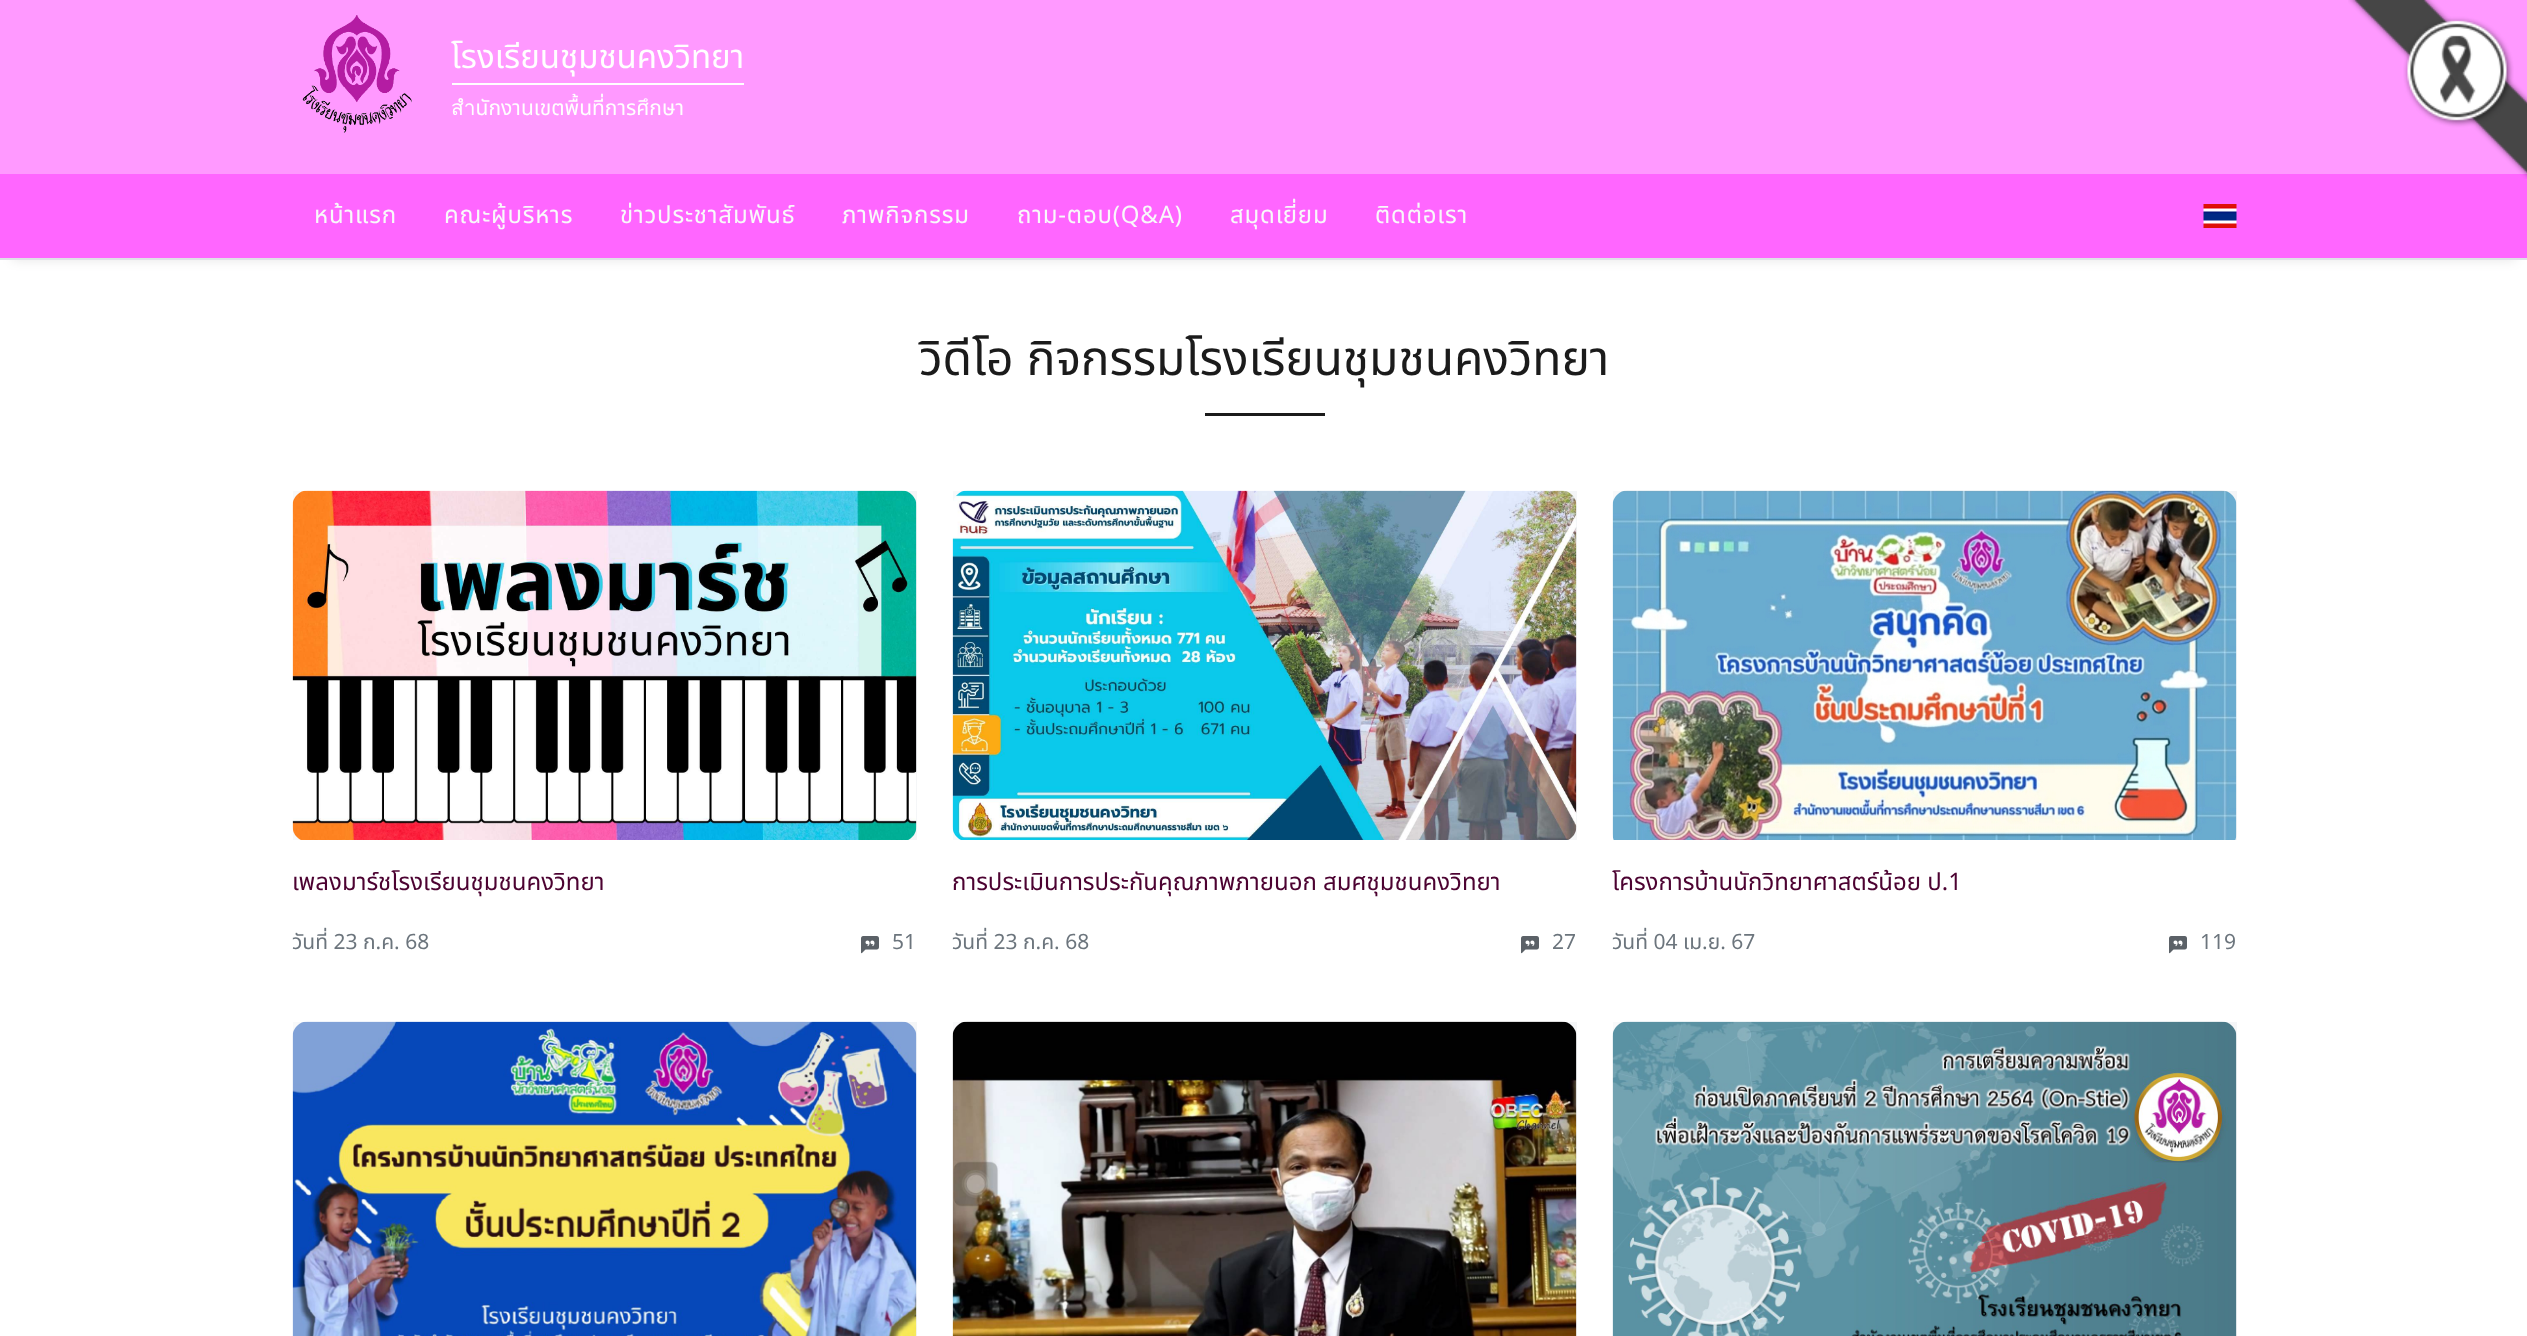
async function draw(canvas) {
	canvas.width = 2527;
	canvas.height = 1336;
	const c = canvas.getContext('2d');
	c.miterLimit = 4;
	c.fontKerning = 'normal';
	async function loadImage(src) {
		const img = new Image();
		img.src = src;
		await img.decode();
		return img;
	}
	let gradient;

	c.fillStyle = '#fff';
	c.fillRect(0, 0, 2527, 1336);
	c.fillStyle = '#f9f';
	c.fillRect(0, 0, 2527, 174);
	c.drawImage(await loadImage('img1.png'), 302, 15, 110, 118);
	c.fillStyle = '#fff';
	c.fillRect(452, 83, 292, 2);
	c.font = '33px Noto Sans Thai';
	c.fillText('โรงเรียนชุมชนคงวิทยา', 451, 68);
	c.font = '21px Noto Sans Thai';
	c.fillText('สำนักงานเขตพื้นที่การศึกษา', 451, 115);
	c.fillStyle = '#0000001a';
	c.filter = 'blur(6px)';
	c.beginPath();
	c.rect(12, 198, 2504, 62);
	c.fill();
	c.filter = 'none';
	c.fillStyle = '#f6f';
	c.fillRect(0, 174, 2527, 84);
	c.drawImage(await loadImage('img2.png'), 2348, 0, 179, 179);
	c.fillStyle = '#dee2e6';
	c.fillRect(0, 258, 2527, 2);
	c.letterSpacing = '0.8px';
	c.font = '24px Noto Sans Thai';
	c.fillStyle = '#f8f9fa';
	for (const [text, x, y] of [
		['หน้าแรก', 314, 223],
		['คณะผู้บริหาร', 444, 223],
		['ข่าวประชาสัมพันธ์', 620, 223],
		['ภาพกิจกรรม', 842, 223],
		['ถาม-ตอบ(Q&A)', 1017, 223],
		['สมุดเยี่ยม', 1230, 223],
		['ติดต่อเรา', 1375, 223],
	]) {
		c.fillText(text, x, y);
	}
	c.drawImage(await loadImage('img3.png'), 2203, 204, 34, 24);
	c.letterSpacing = '-0.15px';
	c.wordSpacing = '1px';
	c.font = '48px Noto Sans Thai';
	c.fillStyle = '#1b1b1b';
	c.fillText('วิดีโอ กิจกรรมโรงเรียนชุมชนคงวิทยา', 919, 375);
	c.fillRect(1205, 413, 120, 3);
	gradient = c.createLinearGradient(1853, 665, -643, 665);
	gradient.addColorStop(0, '#f8f9fa');
	gradient.addColorStop(0.15, '#ced4da');
	gradient.addColorStop(0.4, '#f8f9fa');
	gradient.addColorStop(1, '#f8f9fa');
	c.fillStyle = gradient;
	c.fillRect(293, 491, 624, 349);
	c.drawImage(await loadImage('img4.png'), 292, 490, 625, 350);
	c.letterSpacing = '0px';
	c.wordSpacing = '0px';
	c.font = '24px Noto Sans Thai';
	c.fillStyle = '#4c0231';
	c.fillText('เพลงมาร์ชโรงเรียนชุมชนคงวิทยา', 292, 890);
	c.font = '21px Noto Sans Thai';
	c.fillStyle = '#6c757d';
	c.fillText('วันที่ 23 ก.ค. 68', 292, 949);
	c.drawImage(await loadImage('img5.png'), 861, 936, 18, 18);
	c.fillText('51', 892, 949);
	gradient = c.createLinearGradient(2513, 665, 17, 665);
	gradient.addColorStop(0, '#f8f9fa');
	gradient.addColorStop(0.15, '#ced4da');
	gradient.addColorStop(0.4, '#f8f9fa');
	gradient.addColorStop(1, '#f8f9fa');
	c.fillStyle = gradient;
	c.fillRect(953, 491, 624, 349);
	c.drawImage(await loadImage('img6.png'), 952, 490, 625, 350);
	c.font = '24px Noto Sans Thai';
	c.fillStyle = '#4c0231';
	c.fillText('การประเมินการประกันคุณภาพภายนอก สมศชุมชนคงวิทยา', 952, 890);
	c.font = '21px Noto Sans Thai';
	c.fillStyle = '#6c757d';
	c.fillText('วันที่ 23 ก.ค. 68', 952, 949);
	c.drawImage(await loadImage('img5.png'), 1521, 936, 18, 18);
	c.fillText('27', 1552, 949);
	gradient = c.createLinearGradient(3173, 665, 677, 665);
	gradient.addColorStop(0, '#f8f9fa');
	gradient.addColorStop(0.15, '#ced4da');
	gradient.addColorStop(0.4, '#f8f9fa');
	gradient.addColorStop(1, '#f8f9fa');
	c.fillStyle = gradient;
	c.fillRect(1613, 491, 624, 349);
	c.drawImage(await loadImage('img7.png'), 1612, 490, 625, 350);
	c.font = '24px Noto Sans Thai';
	c.fillStyle = '#4c0231';
	c.fillText('โครงการบ้านนักวิทยาศาสตร์น้อย ป.1', 1612, 890);
	c.font = '21px Noto Sans Thai';
	c.fillStyle = '#6c757d';
	c.fillText('วันที่ 04 เม.ย. 67', 1612, 949);
	c.drawImage(await loadImage('img5.png'), 2169, 936, 18, 18);
	c.fillText('119', 2200, 949);
	gradient = c.createLinearGradient(1853, 1196, -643, 1196);
	gradient.addColorStop(0, '#f8f9fa');
	gradient.addColorStop(0.15, '#ced4da');
	gradient.addColorStop(0.4, '#f8f9fa');
	gradient.addColorStop(1, '#f8f9fa');
	c.fillStyle = gradient;
	c.fillRect(293, 1022, 624, 314);
	c.drawImage(await loadImage('img8.png'), 292, 1021, 625, 315);
	gradient = c.createLinearGradient(2513, 1196, 17, 1196);
	gradient.addColorStop(0, '#f8f9fa');
	gradient.addColorStop(0.15, '#ced4da');
	gradient.addColorStop(0.4, '#f8f9fa');
	gradient.addColorStop(1, '#f8f9fa');
	c.fillStyle = gradient;
	c.fillRect(953, 1022, 624, 314);
	c.drawImage(await loadImage('img9.png'), 952, 1021, 625, 315);
	gradient = c.createLinearGradient(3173, 1196, 677, 1196);
	gradient.addColorStop(0, '#f8f9fa');
	gradient.addColorStop(0.15, '#ced4da');
	gradient.addColorStop(0.4, '#f8f9fa');
	gradient.addColorStop(1, '#f8f9fa');
	c.fillStyle = gradient;
	c.fillRect(1613, 1022, 624, 314);
	c.drawImage(await loadImage('img10.png'), 1612, 1021, 625, 315);
}

draw(document.querySelector('canvas'));
